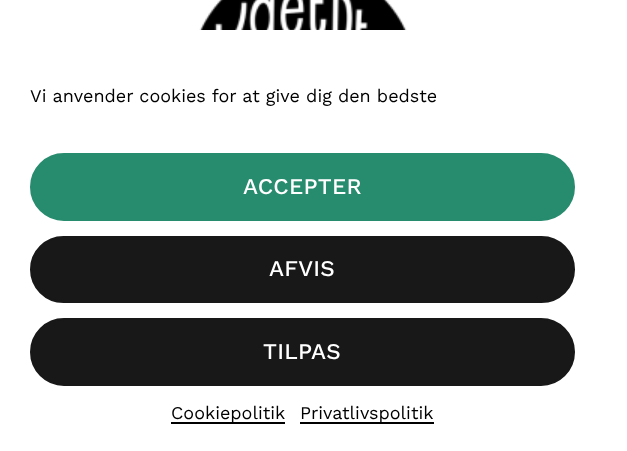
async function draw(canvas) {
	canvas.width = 627;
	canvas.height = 451;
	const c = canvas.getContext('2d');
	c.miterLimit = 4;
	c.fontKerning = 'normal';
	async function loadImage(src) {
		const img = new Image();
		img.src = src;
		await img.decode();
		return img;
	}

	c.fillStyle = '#fff';
	c.fillRect(0, 0, 627, 451);
	c.drawImage(await loadImage('img1.png'), 199, 0, 208, 30);
	c.font = '18px Work Sans';
	c.fillStyle = '#000';
	c.fillText('Vi anvender cookies for at give dig den bedste', 30, 102);
	c.fillStyle = '#278b6d';
	c.beginPath();
	c.roundRect(31, 154, 543, 66, 33);
	c.fill();
	c.strokeStyle = '#278b6d';
	c.lineWidth = 2;
	c.stroke();
	c.letterSpacing = '0.25px';
	c.font = '500 22.5px Work Sans';
	c.fillStyle = '#fff';
	c.fillText('ACCEPTER', 243, 194);
	c.fillStyle = '#181818';
	c.beginPath();
	c.roundRect(31, 237, 543, 65, 32.5);
	c.fill();
	c.strokeStyle = '#181818';
	c.stroke();
	c.fillStyle = '#fff';
	c.fillText('AFVIS', 269, 276);
	c.fillStyle = '#181818';
	c.beginPath();
	c.roundRect(31, 319, 543, 66, 33);
	c.fill();
	c.stroke();
	c.fillStyle = '#fff';
	c.fillText('TILPAS', 263, 359);
	c.fillStyle = '#000';
	c.fillRect(171, 422, 114, 2);
	c.letterSpacing = '0px';
	c.font = '18px Work Sans';
	c.fillText('Cookiepolitik', 171, 419);
	c.fillRect(300, 422, 134, 2);
	c.fillText('Privatlivspolitik', 300, 419);
}

draw(document.querySelector('canvas'));
